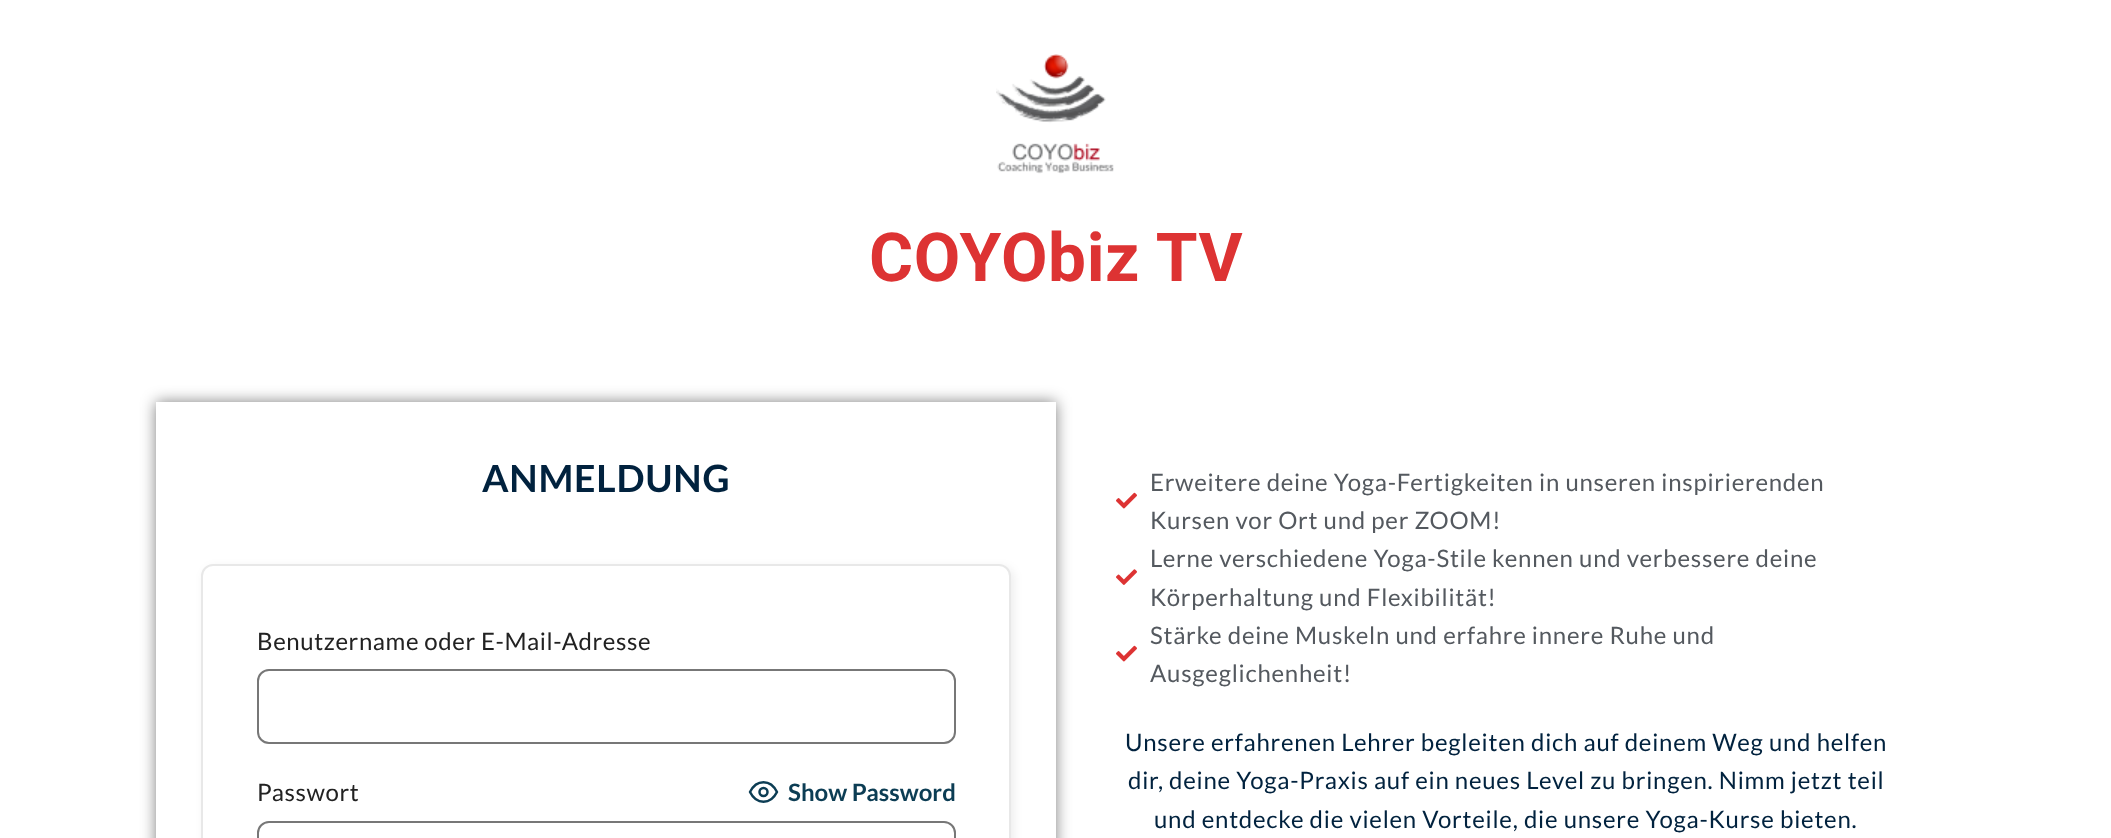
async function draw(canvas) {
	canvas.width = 2111;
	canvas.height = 838;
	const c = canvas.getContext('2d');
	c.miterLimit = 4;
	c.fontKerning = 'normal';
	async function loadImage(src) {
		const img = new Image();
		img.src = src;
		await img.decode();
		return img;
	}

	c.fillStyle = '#fff';
	c.fillRect(0, 0, 2111, 838);
	c.drawImage(await loadImage('img1.png'), 996, 54, 118, 120);
	c.letterSpacing = '0.6px';
	c.font = 'bold 67.5px Roboto';
	c.fillStyle = '#d33';
	c.fillText('COYObiz TV', 869, 281);
	c.save();
	c.beginPath();
	c.moveTo(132, 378);
	c.lineTo(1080, 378);
	c.lineTo(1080, 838);
	c.lineTo(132, 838);
	c.closePath();
	c.moveTo(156, 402);
	c.lineTo(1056, 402);
	c.lineTo(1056, 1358);
	c.lineTo(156, 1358);
	c.closePath();
	c.clip('evenodd');
	c.fillStyle = '#00000080';
	c.filter = 'blur(7.5px)';
	c.beginPath();
	c.rect(156, 402, 900, 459);
	c.fill();
	c.filter = 'none';
	c.restore();
	c.letterSpacing = '0.75px';
	c.font = 'bold 37.5px Lato';
	c.fillStyle = '#01223e';
	c.fillText('ANMELDUNG', 482, 492);
	c.fillStyle = '#00000012';
	c.filter = 'blur(5px)';
	c.beginPath();
	c.roundRect(204, 567, 810, 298, 12);
	c.fill();
	c.filter = 'none';
	c.fillStyle = '#fff';
	c.beginPath();
	c.roundRect(202, 565, 808, 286, 11);
	c.fill();
	c.strokeStyle = '#e8e8e8';
	c.lineWidth = 2;
	c.stroke();
	c.letterSpacing = '0.6px';
	c.font = '24px Lato';
	c.fillStyle = '#222';
	c.fillText('Benutzername oder E-Mail-Adresse', 257, 650);
	c.beginPath();
	c.roundRect(258, 670, 697, 73, 11);
	c.strokeStyle = '#777';
	c.stroke();
	c.fillText('Passwort', 257, 801);
	c.beginPath();
	c.moveTo(750, 792);
	c.bezierCurveTo(756.5, 779, 770.5, 779, 777, 792);
	c.bezierCurveTo(770.5, 805, 756.5, 805, 750, 792);
	c.closePath();
	c.strokeStyle = '#0c3d54';
	c.lineWidth = 2.5;
	c.lineCap = 'round';
	c.lineJoin = 'round';
	c.stroke();
	c.beginPath();
	c.arc(763.5, 792, 4, 0, 2 * Math.PI);
	c.stroke();
	c.letterSpacing = '0px';
	c.font = 'bold 24px Lato';
	c.fillStyle = '#0c3d54';
	c.fillText('Show Password', 788, 801);
	c.beginPath();
	c.roundRect(258, 822, 697, 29, 11);
	c.strokeStyle = '#777';
	c.lineWidth = 2;
	c.lineJoin = 'miter';
	c.stroke();
	c.drawImage(await loadImage('img2.png'), 1116, 492, 21, 17);
	c.letterSpacing = '0.75px';
	c.font = '24px Lato';
	c.fillStyle = '#54595f';
	c.fillText('Erweitere deine Yoga-Fertigkeiten in unseren inspirierenden', 1150, 491);
	c.fillText('Kursen vor Ort und per ZOOM!', 1150, 529);
	c.drawImage(await loadImage('img3.png'), 1116, 569, 21, 16);
	c.fillText('Lerne verschiedene Yoga-Stile kennen und verbessere deine', 1150, 567);
	c.fillText('Körperhaltung und Flexibilität!', 1150, 606);
	c.drawImage(await loadImage('img2.png'), 1116, 645, 21, 17);
	c.fillText('Stärke deine Muskeln und erfahre innere Ruhe und', 1150, 644);
	c.fillText('Ausgeglichenheit!', 1150, 682);
	c.fillStyle = '#01223e';
	for (const [text, x, y] of [
		['Unsere erfahrenen Lehrer begleiten dich auf deinem Weg und helfen', 1125, 751],
		['dir, deine Yoga-Praxis auf ein neues Level zu bringen. Nimm jetzt teil', 1128, 789],
		['und entdecke die vielen Vorteile, die unsere Yoga-Kurse bieten.', 1154, 828],
	]) {
		c.fillText(text, x, y);
	}
}

draw(document.querySelector('canvas'));
